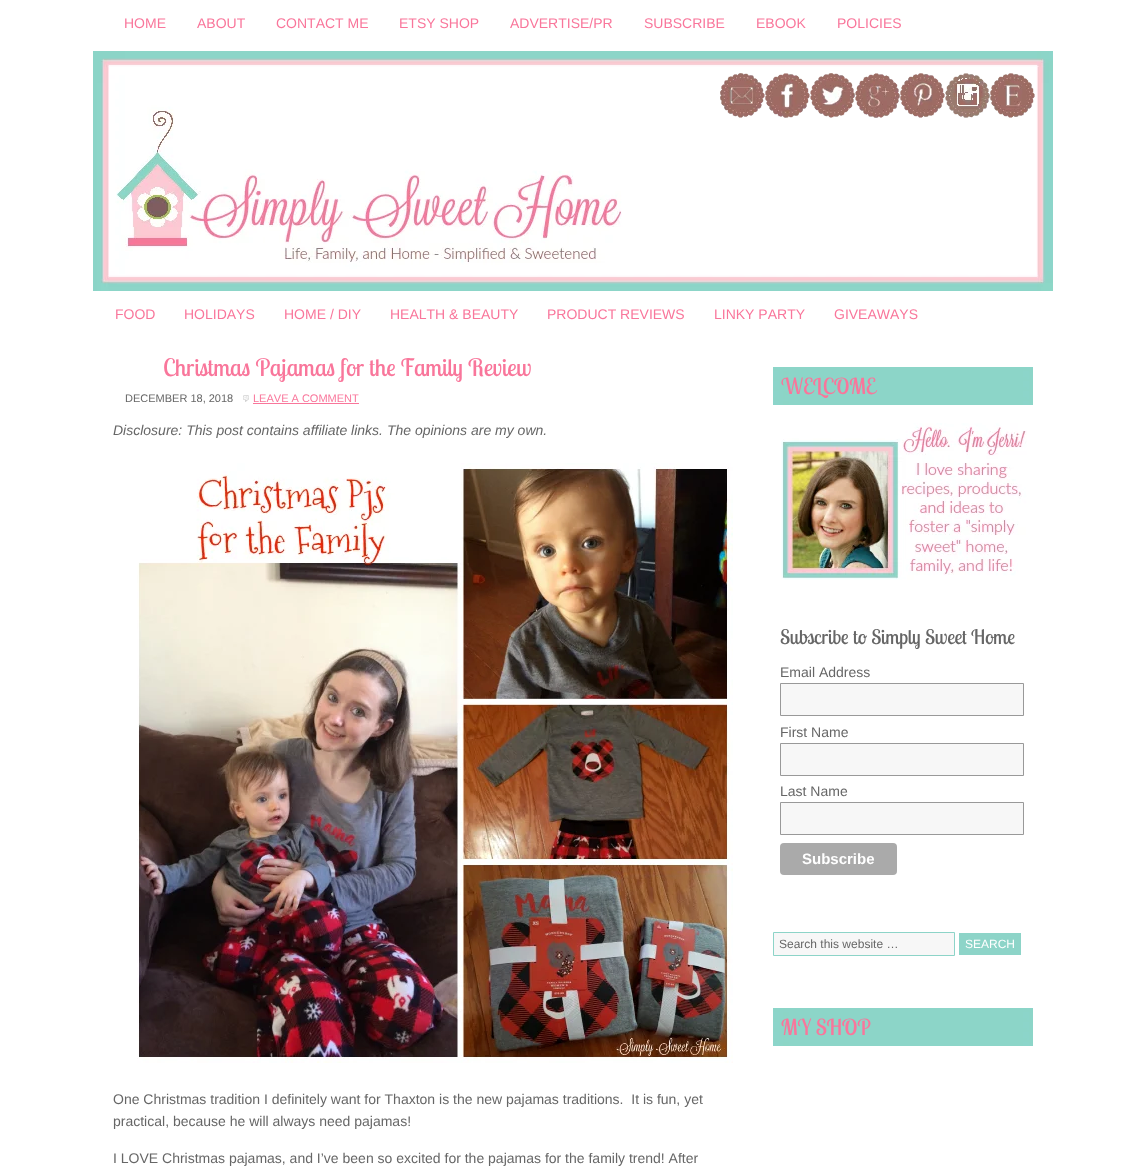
async function draw(canvas) {
	canvas.width = 1145;
	canvas.height = 1175;
	const c = canvas.getContext('2d');
	c.miterLimit = 4;
	c.fontKerning = 'none';
	async function loadImage(src) {
		const img = new Image();
		img.src = src;
		await img.decode();
		return img;
	}

	c.fillStyle = '#fff';
	c.fillRect(0, 0, 1145, 1175);
	c.font = '14px Liberation Sans';
	c.fillStyle = '#f9769b';
	for (const [text, x, y] of [
		['HOME', 124, 28],
		['ABOUT', 197, 28],
		['CONTACT ME', 276, 28],
		['ETSY SHOP', 399, 28],
		['ADVERTISE/PR', 510, 28],
		['SUBSCRIBE', 644, 28],
		['EBOOK', 756, 28],
		['POLICIES', 837, 28],
	]) {
		c.fillText(text, x, y);
	}
	c.drawImage(await loadImage('img1.png'), 93, 51, 960, 240);
	c.drawImage(await loadImage('img2.png'), 720, 73, 45, 45);
	c.drawImage(await loadImage('img3.png'), 765, 73, 45, 45);
	c.drawImage(await loadImage('img4.png'), 810, 73, 45, 45);
	c.drawImage(await loadImage('img5.png'), 855, 73, 45, 45);
	c.drawImage(await loadImage('img6.png'), 900, 73, 45, 45);
	c.drawImage(await loadImage('img7.png'), 945, 73, 45, 45);
	c.drawImage(await loadImage('img8.png'), 990, 73, 45, 45);
	for (const [text, x, y] of [
		['FOOD', 115, 319],
		['HOLIDAYS', 184, 319],
		['HOME / DIY', 284, 319],
		['HEALTH & BEAUTY', 390, 319],
		['PRODUCT REVIEWS', 547, 319],
		['LINKY PARTY', 714, 319],
		['GIVEAWAYS', 834, 319],
	]) {
		c.fillText(text, x, y);
	}
	c.font = '24px Lobster Two';
	c.fillText('Christmas Pajamas for the Family Review', 163, 376);
	c.font = '11px Liberation Sans';
	c.fillStyle = '#666';
	c.fillText('DECEMBER 18, 2018', 125, 402);
	c.drawImage(await loadImage('img9.png'), 243, 395, 6, 7);
	c.fillStyle = '#f9769b';
	c.fillText('LEAVE A COMMENT', 253, 402);
	c.fillRect(253, 403, 106, 1);
	c.font = 'italic 14px Liberation Sans';
	c.fillStyle = '#666';
	c.fillText('Disclosure: This post contains affiliate links. The opinions are my own.', 113, 435);
	c.drawImage(await loadImage('img10.png'), 137, 463, 596, 600);
	c.font = '14px Liberation Sans';
	for (const [text, x, y] of [
		['One Christmas tradition I definitely want for Thaxton is the new pajamas traditions.  It is fun, yet', 113, 1104],
		['practical, because he will always need pajamas!', 113, 1126],
		['I LOVE Christmas pajamas, and I’ve been so excited for the pajamas for the family trend! After', 113, 1163],
	]) {
		c.fillText(text, x, y);
	}
	c.drawImage(await loadImage('img11.png'), 773, 367, 260, 38);
	c.font = '22px Lobster Two';
	c.fillStyle = '#f9769b';
	c.fillText('WELCOME', 781, 394);
	c.drawImage(await loadImage('img12.png'), 781, 423, 246, 157);
	c.font = '20px Lobster Two';
	c.fillStyle = '#666';
	c.fillText('Subscribe to Simply Sweet Home', 780, 644);
	c.font = '14px Liberation Sans';
	c.fillText('Email Address', 780, 677);
	c.fillStyle = '#f7f7f7';
	c.beginPath();
	c.rect(780.5, 683.5, 243, 32);
	c.fill();
	c.strokeStyle = '#999';
	c.stroke();
	c.fillStyle = '#666';
	c.fillText('First Name', 780, 737);
	c.fillStyle = '#f7f7f7';
	c.beginPath();
	c.rect(780.5, 743.5, 243, 32);
	c.fill();
	c.stroke();
	c.fillStyle = '#666';
	c.fillText('Last Name', 780, 796);
	c.fillStyle = '#f7f7f7';
	c.beginPath();
	c.rect(780.5, 802.5, 243, 32);
	c.fill();
	c.stroke();
	c.fillStyle = '#aaa';
	c.beginPath();
	c.roundRect(780, 843, 117, 32, 4);
	c.fill();
	c.font = 'bold 15px Liberation Sans';
	c.fillStyle = '#fff';
	c.fillText('Subscribe', 802, 864);
	c.fillStyle = '#f7f7f7';
	c.beginPath();
	c.rect(773.5, 932.5, 181, 23);
	c.fill();
	c.strokeStyle = '#8dd4c8';
	c.stroke();
	c.font = '12px Liberation Sans';
	c.fillStyle = '#666';
	c.fillText('Search this website …', 779, 948);
	c.fillStyle = '#8dd4c8';
	c.fillRect(959, 933, 62, 22);
	c.fillStyle = '#fff';
	c.fillText('SEARCH', 965, 948);
	c.drawImage(await loadImage('img11.png'), 773, 1008, 260, 38);
	c.font = '22px Lobster Two';
	c.fillStyle = '#f9769b';
	c.fillText('MY SHOP', 781, 1035);
}

draw(document.querySelector('canvas'));
